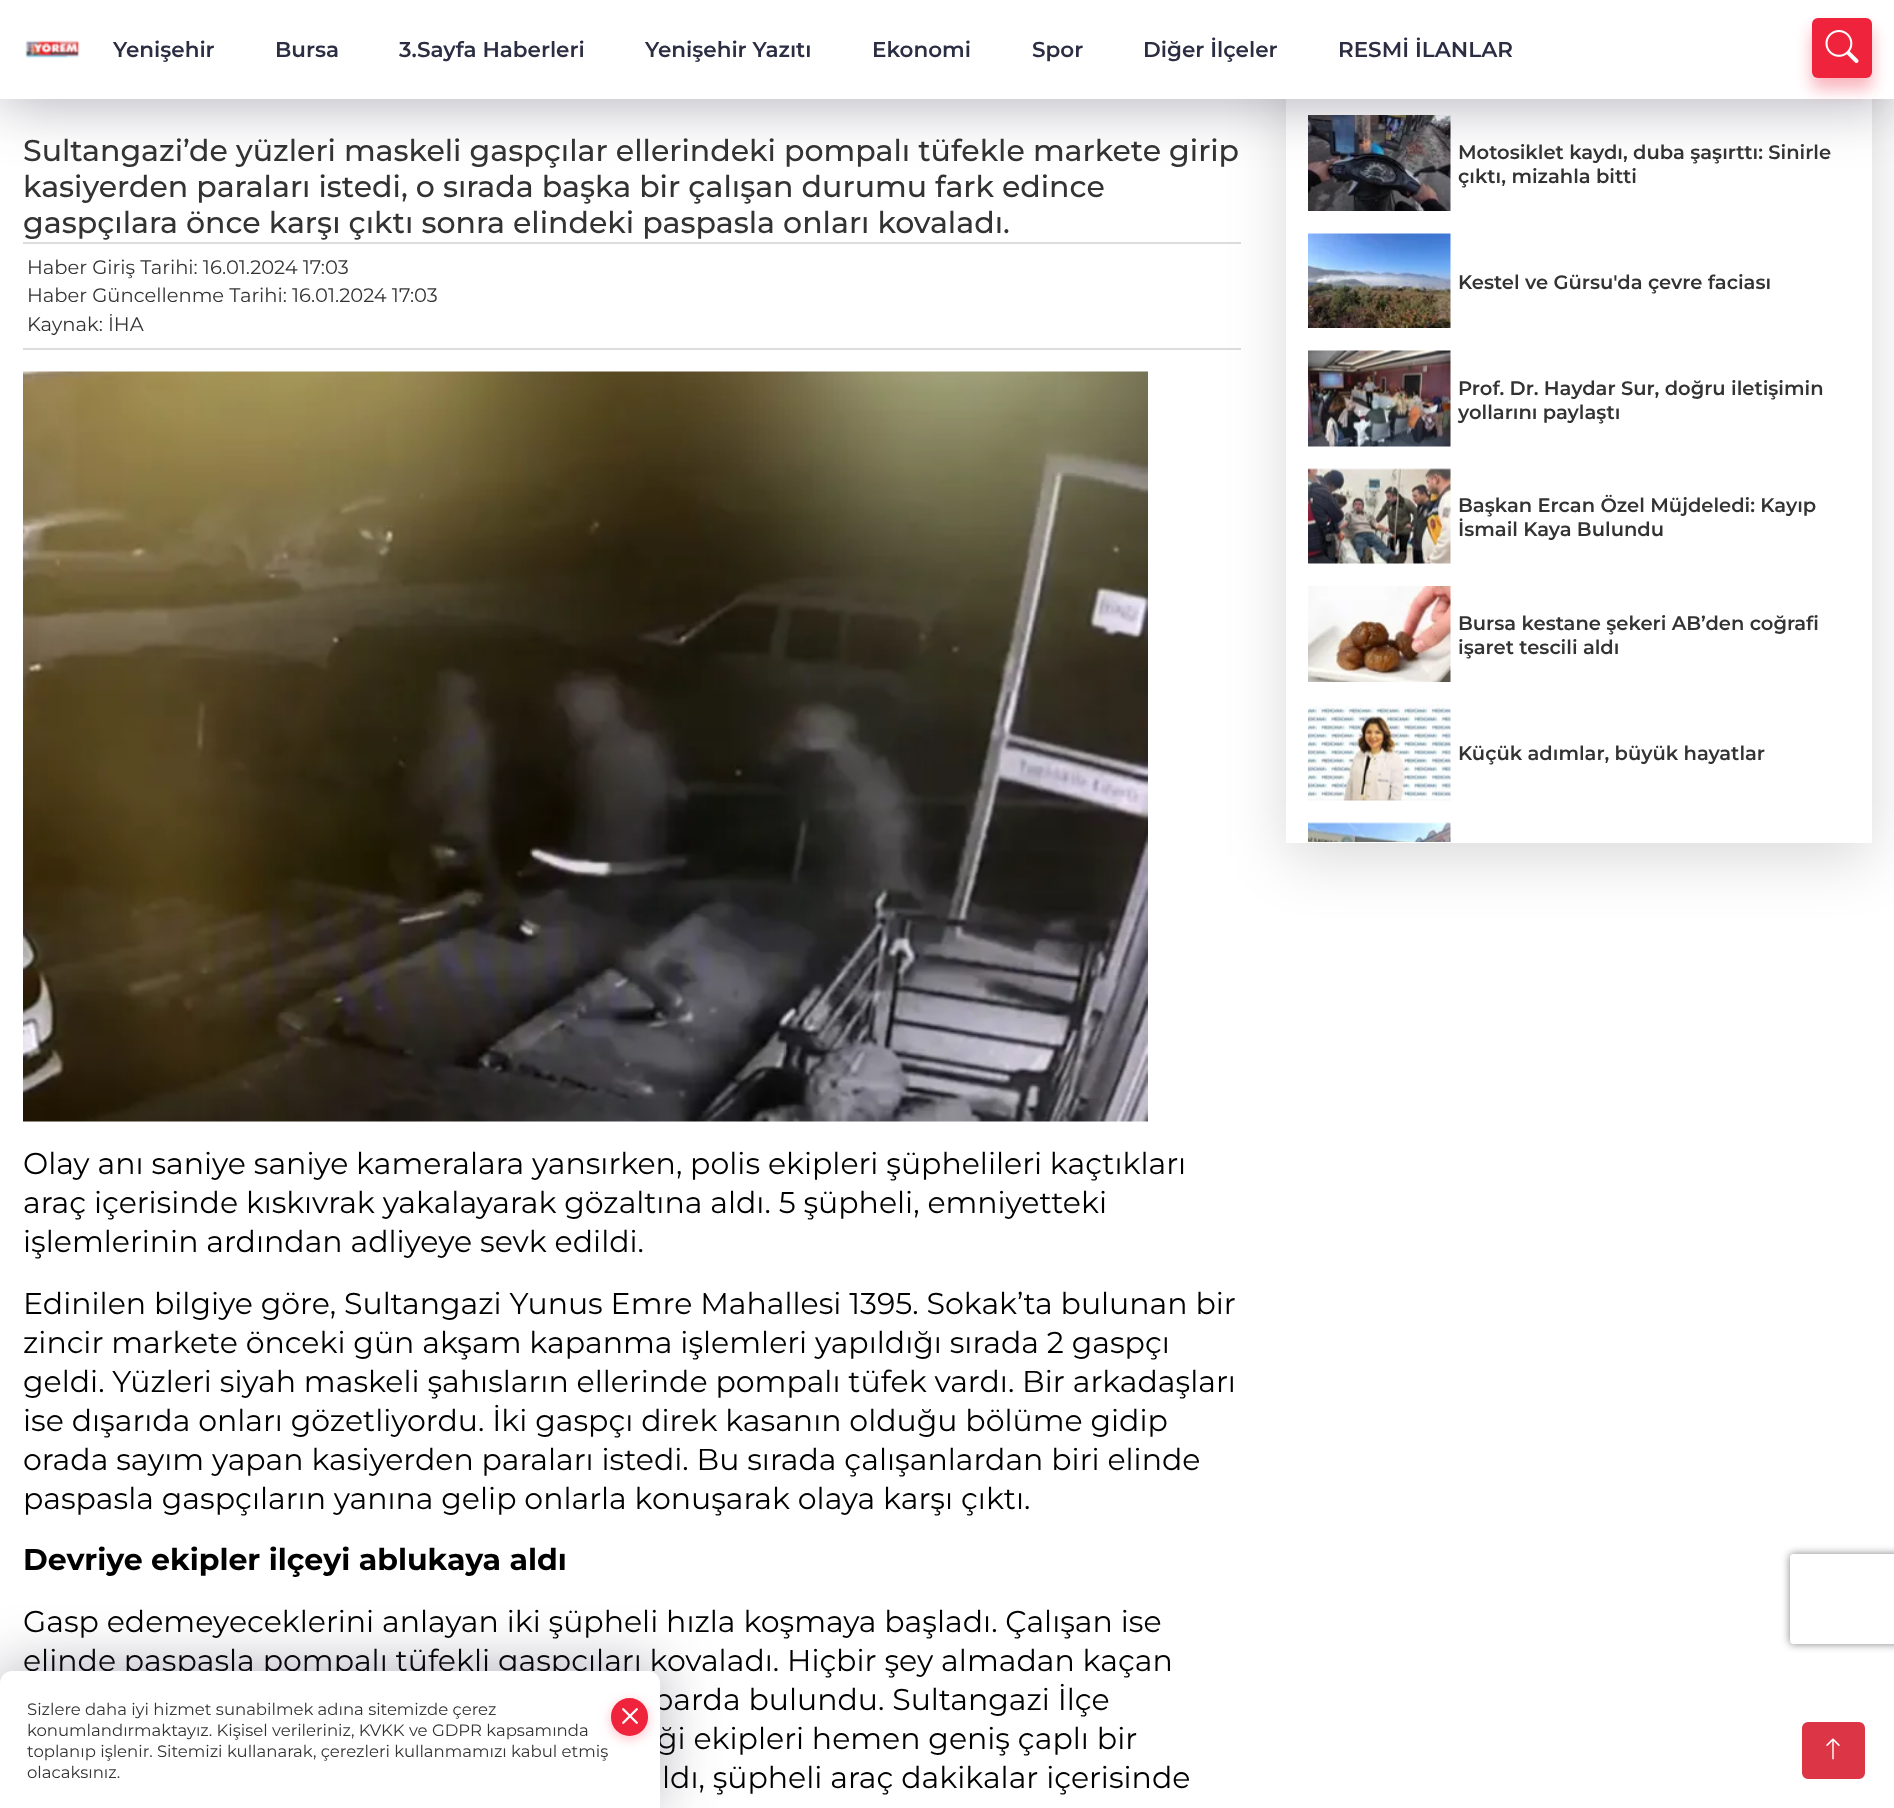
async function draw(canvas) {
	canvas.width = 1894;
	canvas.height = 1808;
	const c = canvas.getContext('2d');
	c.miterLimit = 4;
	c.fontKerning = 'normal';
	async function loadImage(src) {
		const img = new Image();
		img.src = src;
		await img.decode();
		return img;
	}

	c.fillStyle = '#fff';
	c.fillRect(0, 0, 1894, 1808);
	c.fillStyle = '#ddd';
	c.fillRect(23, 242, 1218, 2);
	c.fillRect(23, 348, 1218, 2);
	c.save();
	c.beginPath();
	c.moveTo(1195, 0);
	c.lineTo(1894, 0);
	c.lineTo(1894, 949);
	c.lineTo(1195, 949);
	c.closePath();
	c.moveTo(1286, 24);
	c.lineTo(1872, 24);
	c.lineTo(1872, 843);
	c.lineTo(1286, 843);
	c.closePath();
	c.clip('evenodd');
	c.fillStyle = '#00000026';
	c.filter = 'blur(30px)';
	c.beginPath();
	c.rect(1286, 39, 586, 819);
	c.fill();
	c.filter = 'none';
	c.restore();
	c.drawImage(await loadImage('img4.png'), 1308, 115, 143, 96);
	c.fillStyle = '#2b2d425c';
	c.filter = 'blur(28.5px)';
	c.beginPath();
	c.rect(0, 5, 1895, 99);
	c.fill();
	c.filter = 'none';
	c.fillStyle = '#fff';
	c.fillRect(0, 0, 1894, 99);
	c.drawImage(await loadImage('img1.png'), 25, 40, 55, 18);
	c.font = '600 21.5px Montserrat';
	c.fillStyle = '#2b2d42';
	for (const [text, x, y] of [
		['Yenişehir', 113, 57],
		['Bursa', 275, 57],
		['3.Sayfa Haberleri', 399, 57],
		['Yenişehir Yazıtı', 645, 57],
		['Ekonomi', 872, 57],
		['Spor', 1032, 57],
		['Diğer İlçeler', 1143, 57],
		['RESMİ İLANLAR', 1338, 57],
	]) {
		c.fillText(text, x, y);
	}
	c.fillStyle = '#ef233c2e';
	c.filter = 'blur(8px)';
	c.beginPath();
	c.roundRect(1812, 29, 60, 60, 6);
	c.fill();
	c.filter = 'none';
	c.filter = 'blur(8px)';
	c.beginPath();
	c.roundRect(1812, 29, 60, 60, 6);
	c.fill();
	c.filter = 'none';
	c.fillStyle = '#ef233c';
	c.beginPath();
	c.roundRect(1812, 18, 60, 60, 6);
	c.fill();
	c.drawImage(await loadImage('img2.png'), 1825, 30, 34, 33);
	c.font = '500 30px Montserrat';
	c.fillStyle = '#333';
	for (const [text, x, y] of [
		['Sultangazi’de yüzleri maskeli gaspçılar ellerindeki pompalı tüfekle markete girip', 23, 161],
		['kasiyerden paraları istedi, o sırada başka bir çalışan durumu fark edince', 23, 197],
		['gaspçılara önce karşı çıktı sonra elindeki paspasla onları kovaladı.', 23, 233],
	]) {
		c.fillText(text, x, y);
	}
	c.font = '19.5px Montserrat';
	for (const [text, x, y] of [
		['Haber Giriş Tarihi: 16.01.2024 17:03', 27, 274],
		['Haber Güncellenme Tarihi: 16.01.2024 17:03', 27, 302],
		['Kaynak: İHA', 27, 331],
	]) {
		c.fillText(text, x, y);
	}
	c.drawImage(await loadImage('img3.png'), 23, 371, 1125, 751);
	c.font = '30px Montserrat';
	c.fillStyle = '#000';
	for (const [text, x, y] of [
		['Olay anı saniye saniye kameralara yansırken, polis ekipleri şüphelileri kaçtıkları', 23, 1174],
		['araç içerisinde kıskıvrak yakalayarak gözaltına aldı. 5 şüpheli, emniyetteki', 23, 1213],
		['işlemlerinin ardından adliyeye sevk edildi.', 23, 1252],
		['Edinilen bilgiye göre, Sultangazi Yunus Emre Mahallesi 1395. Sokak’ta bulunan bir', 23, 1314],
		['zincir markete önceki gün akşam kapanma işlemleri yapıldığı sırada 2 gaspçı', 23, 1353],
		['geldi. Yüzleri siyah maskeli şahısların ellerinde pompalı tüfek vardı. Bir arkadaşları', 23, 1392],
		['ise dışarıda onları gözetliyordu. İki gaspçı direk kasanın olduğu bölüme gidip', 23, 1431],
		['orada sayım yapan kasiyerden paraları istedi. Bu sırada çalışanlardan biri elinde', 23, 1470],
		['paspasla gaspçıların yanına gelip onlarla konuşarak olaya karşı çıktı.', 23, 1509],
	]) {
		c.fillText(text, x, y);
	}
	c.font = 'bold 30px Montserrat';
	c.fillText('Devriye ekipler ilçeyi ablukaya aldı', 23, 1570);
	c.font = '30px Montserrat';
	for (const [text, x, y] of [
		['Gasp edemeyeceklerini anlayan iki şüpheli hızla koşmaya başladı. Çalışan ise', 23, 1632],
		['elinde paspasla pompalı tüfekli gaspçıları kovaladı. Hiçbir şey almadan kaçan', 23, 1671],
		['barda bulundu. Sultangazi İlçe', 653, 1710],
		['ği ekipleri hemen geniş çaplı bir', 657, 1749],
		['ldı, şüpheli araç dakikalar içerisinde', 662, 1788],
	]) {
		c.fillText(text, x, y);
	}
	c.font = '600 19.5px Montserrat';
	c.fillStyle = '#333';
	c.fillText('Motosiklet kaydı, duba şaşırttı: Sinirle', 1458, 159);
	c.fillText('çıktı, mizahla bitti', 1458, 183);
	c.drawImage(await loadImage('img5.png'), 1308, 233, 143, 95);
	c.fillText('Kestel ve Gürsu\'da çevre faciası', 1458, 289);
	c.drawImage(await loadImage('img6.png'), 1308, 350, 143, 97);
	c.fillText('Prof. Dr. Haydar Sur, doğru iletişimin', 1458, 395);
	c.fillText('yollarını paylaştı', 1458, 419);
	c.drawImage(await loadImage('img7.png'), 1308, 468, 143, 96);
	c.fillText('Başkan Ercan Özel Müjdeledi: Kayıp', 1458, 512);
	c.fillText('İsmail Kaya Bulundu', 1458, 536);
	c.drawImage(await loadImage('img8.png'), 1308, 586, 143, 96);
	c.fillText('Bursa kestane şekeri AB’den coğrafi', 1458, 630);
	c.fillText('işaret tescili aldı', 1458, 654);
	c.drawImage(await loadImage('img9.png'), 1308, 704, 143, 97);
	c.fillText('Küçük adımlar, büyük hayatlar', 1458, 760);
	c.drawImage(await loadImage('img10.png'), 1308, 822, 143, 20);
	c.save();
	c.beginPath();
	c.moveTo(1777, 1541);
	c.lineTo(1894, 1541);
	c.lineTo(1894, 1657);
	c.lineTo(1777, 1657);
	c.closePath();
	c.moveTo(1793, 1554);
	c.lineTo(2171, 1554);
	c.bezierCurveTo(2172.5, 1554, 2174, 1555.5, 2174, 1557);
	c.lineTo(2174, 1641);
	c.bezierCurveTo(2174, 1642.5, 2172.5, 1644, 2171, 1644);
	c.lineTo(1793, 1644);
	c.bezierCurveTo(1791.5, 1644, 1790, 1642.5, 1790, 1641);
	c.lineTo(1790, 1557);
	c.bezierCurveTo(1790, 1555.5, 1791.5, 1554, 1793, 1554);
	c.closePath();
	c.clip('evenodd');
	c.fillStyle = '#808080';
	c.filter = 'blur(4px)';
	c.beginPath();
	c.roundRect(1790, 1554, 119, 90, 3);
	c.fill();
	c.filter = 'none';
	c.restore();
	c.fillStyle = '#2b2d425c';
	c.filter = 'blur(28.5px)';
	c.beginPath();
	c.roundRect(0, 1667, 660, 138, 12);
	c.fill();
	c.filter = 'none';
	c.fillStyle = '#fff';
	c.beginPath();
	c.moveTo(12, 1671);
	c.lineTo(648, 1671);
	c.bezierCurveTo(654.5, 1671, 660, 1676.5, 660, 1683);
	c.lineTo(660, 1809);
	c.lineTo(0, 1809);
	c.lineTo(0, 1683);
	c.bezierCurveTo(0, 1676.5, 5.5, 1671, 12, 1671);
	c.closePath();
	c.fill();
	c.font = '16.5px Montserrat';
	c.fillStyle = '#333';
	c.fillText('Sizlere daha iyi hizmet sunabilmek adına sitemizde çerez', 27, 1715);
	c.fillStyle = '#ff566a61';
	c.filter = 'blur(6px)';
	c.beginPath();
	c.roundRect(611, 1701, 37, 38, 18.5);
	c.fill();
	c.filter = 'none';
	c.fillStyle = '#ef233c';
	c.beginPath();
	c.roundRect(611, 1698, 37, 38, 18.5);
	c.fill();
	c.drawImage(await loadImage('img11.png'), 622, 1708, 16, 16);
	c.fillStyle = '#333';
	for (const [text, x, y] of [
		['konumlandırmaktayız. Kişisel verileriniz, KVKK ve GDPR kapsamında', 27, 1736],
		['toplanıp işlenir. Sitemizi kullanarak, çerezleri kullanmamızı kabul etmiş', 27, 1757],
		['olacaksınız.', 27, 1778],
	]) {
		c.fillText(text, x, y);
	}
	c.fillStyle = '#dc3545';
	c.beginPath();
	c.roundRect(1803, 1723, 61, 55, 5);
	c.fill();
	c.strokeStyle = '#dc3545';
	c.lineWidth = 2;
	c.stroke();
	c.drawImage(await loadImage('img12.png'), 1826, 1738, 14, 22);
}

draw(document.querySelector('canvas'));
